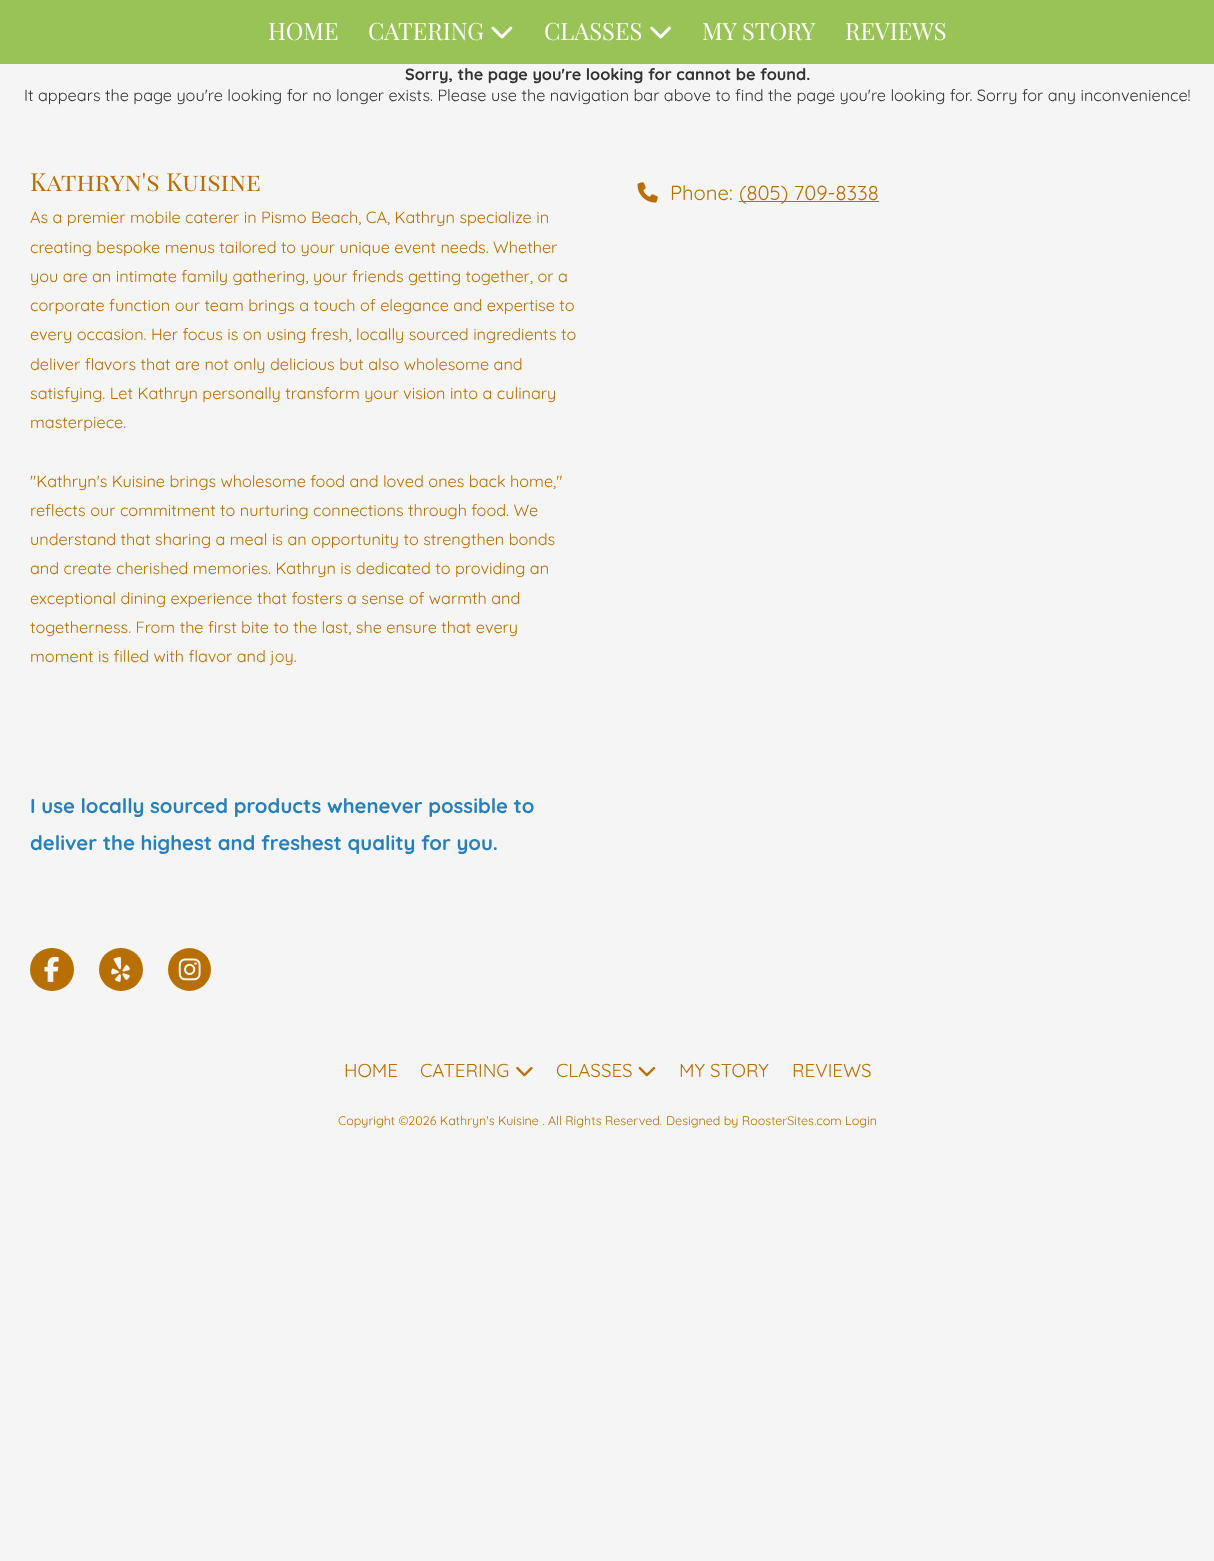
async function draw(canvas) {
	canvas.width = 1214;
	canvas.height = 1561;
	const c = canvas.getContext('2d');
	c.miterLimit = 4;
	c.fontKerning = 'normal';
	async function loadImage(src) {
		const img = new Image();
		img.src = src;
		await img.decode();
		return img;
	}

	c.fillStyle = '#f5f5f5';
	c.fillRect(0, 0, 1214, 1561);
	c.fillStyle = '#99c356';
	c.fillRect(0, 0, 1214, 64);
	c.font = '23.75px Playfair Display';
	c.fillStyle = '#fff';
	c.fillText('HOME', 268, 40);
	c.fillText('CATERING', 368, 40);
	c.drawImage(await loadImage('img1.png'), 491, 26, 22, 13);
	c.fillText('CLASSES', 544, 40);
	c.drawImage(await loadImage('img2.png'), 650, 26, 21, 13);
	c.fillText('MY STORY', 702, 40);
	c.fillText('REVIEWS', 845, 40);
	c.font = 'bold 16.25px Quicksand';
	c.fillStyle = '#333';
	c.fillText('Sorry, the page you\'re looking for cannot be found.', 405, 80);
	c.font = '16.25px Quicksand';
	c.fillText('It appears the page you\'re looking for no longer exists. Please use the navigation bar above to find the page you\'re looking for. Sorry for any inconvenience!', 24, 101);
	c.font = '25px Playfair Display SC';
	c.fillStyle = '#b86f02';
	c.fillText('Kathryn\'s Kuisine', 30, 191);
	c.font = '16.25px Quicksand';
	for (const [text, x, y] of [
		['As a premier mobile caterer in Pismo Beach, CA, Kathryn specialize in', 30, 223],
		['creating bespoke menus tailored to your unique event needs. Whether', 30, 253],
		['you are an intimate family gathering, your friends getting together, or a', 30, 282],
		['corporate function our team brings a touch of elegance and expertise to', 30, 311],
		['every occasion. Her focus is on using fresh, locally sourced ingredients to', 30, 340],
		['deliver flavors that are not only delicious but also wholesome and', 30, 370],
		['satisfying. Let Kathryn personally transform your vision into a culinary', 30, 399],
		['masterpiece.', 30, 428],
		['"Kathryn\'s Kuisine brings wholesome food and loved ones back home,"', 30, 487],
		['reflects our commitment to nurturing connections through food. We', 30, 516],
		['understand that sharing a meal is an opportunity to strengthen bonds', 30, 545],
		['and create cherished memories. Kathryn is dedicated to providing an', 30, 574],
		['exceptional dining experience that fosters a sense of warmth and', 30, 604],
		['togetherness. From the first bite to the last, she ensure that every', 30, 633],
		['moment is filled with flavor and joy.', 30, 662],
	]) {
		c.fillText(text, x, y);
	}
	c.font = 'bold 20.3px Quicksand';
	c.fillStyle = '#2980b9';
	c.fillText('I use locally sourced products whenever possible to', 30, 813);
	c.fillText('deliver the highest and freshest quality for you.', 30, 850);
	c.fillStyle = '#b86f02';
	c.beginPath();
	c.roundRect(30, 948, 44, 43, 21.5);
	c.fill();
	c.drawImage(await loadImage('img3.png'), 44, 956, 15, 26);
	c.beginPath();
	c.roundRect(99, 948, 44, 43, 21.5);
	c.fill();
	c.drawImage(await loadImage('img4.png'), 111, 956, 19, 26);
	c.beginPath();
	c.arc(189.5, 969.5, 21.5, 0, 2 * Math.PI);
	c.fill();
	c.drawImage(await loadImage('img5.png'), 178, 958, 23, 23);
	c.drawImage(await loadImage('img6.png'), 637, 182, 21, 21);
	c.font = '20.3px Quicksand';
	c.fillText('Phone:', 670, 200);
	c.fillRect(739, 201, 140, 1);
	c.fillText('(805) 709-8338', 739, 200);
	c.font = '18.75px Quicksand';
	c.fillText('HOME', 344, 1077);
	c.fillText('CATERING', 420, 1077);
	c.drawImage(await loadImage('img7.png'), 516, 1067, 17, 10);
	c.fillText('CLASSES', 556, 1077);
	c.drawImage(await loadImage('img8.png'), 638, 1067, 18, 10);
	c.fillText('MY STORY', 679, 1077);
	c.fillText('REVIEWS', 792, 1077);
	c.font = '12.5px Quicksand';
	c.fillText('Copyright ©2026 Kathryn\'s Kuisine . All Rights Reserved.', 338, 1125);
	c.fillText('Designed by RoosterSites.com Login', 666, 1125);
}

draw(document.querySelector('canvas'));
